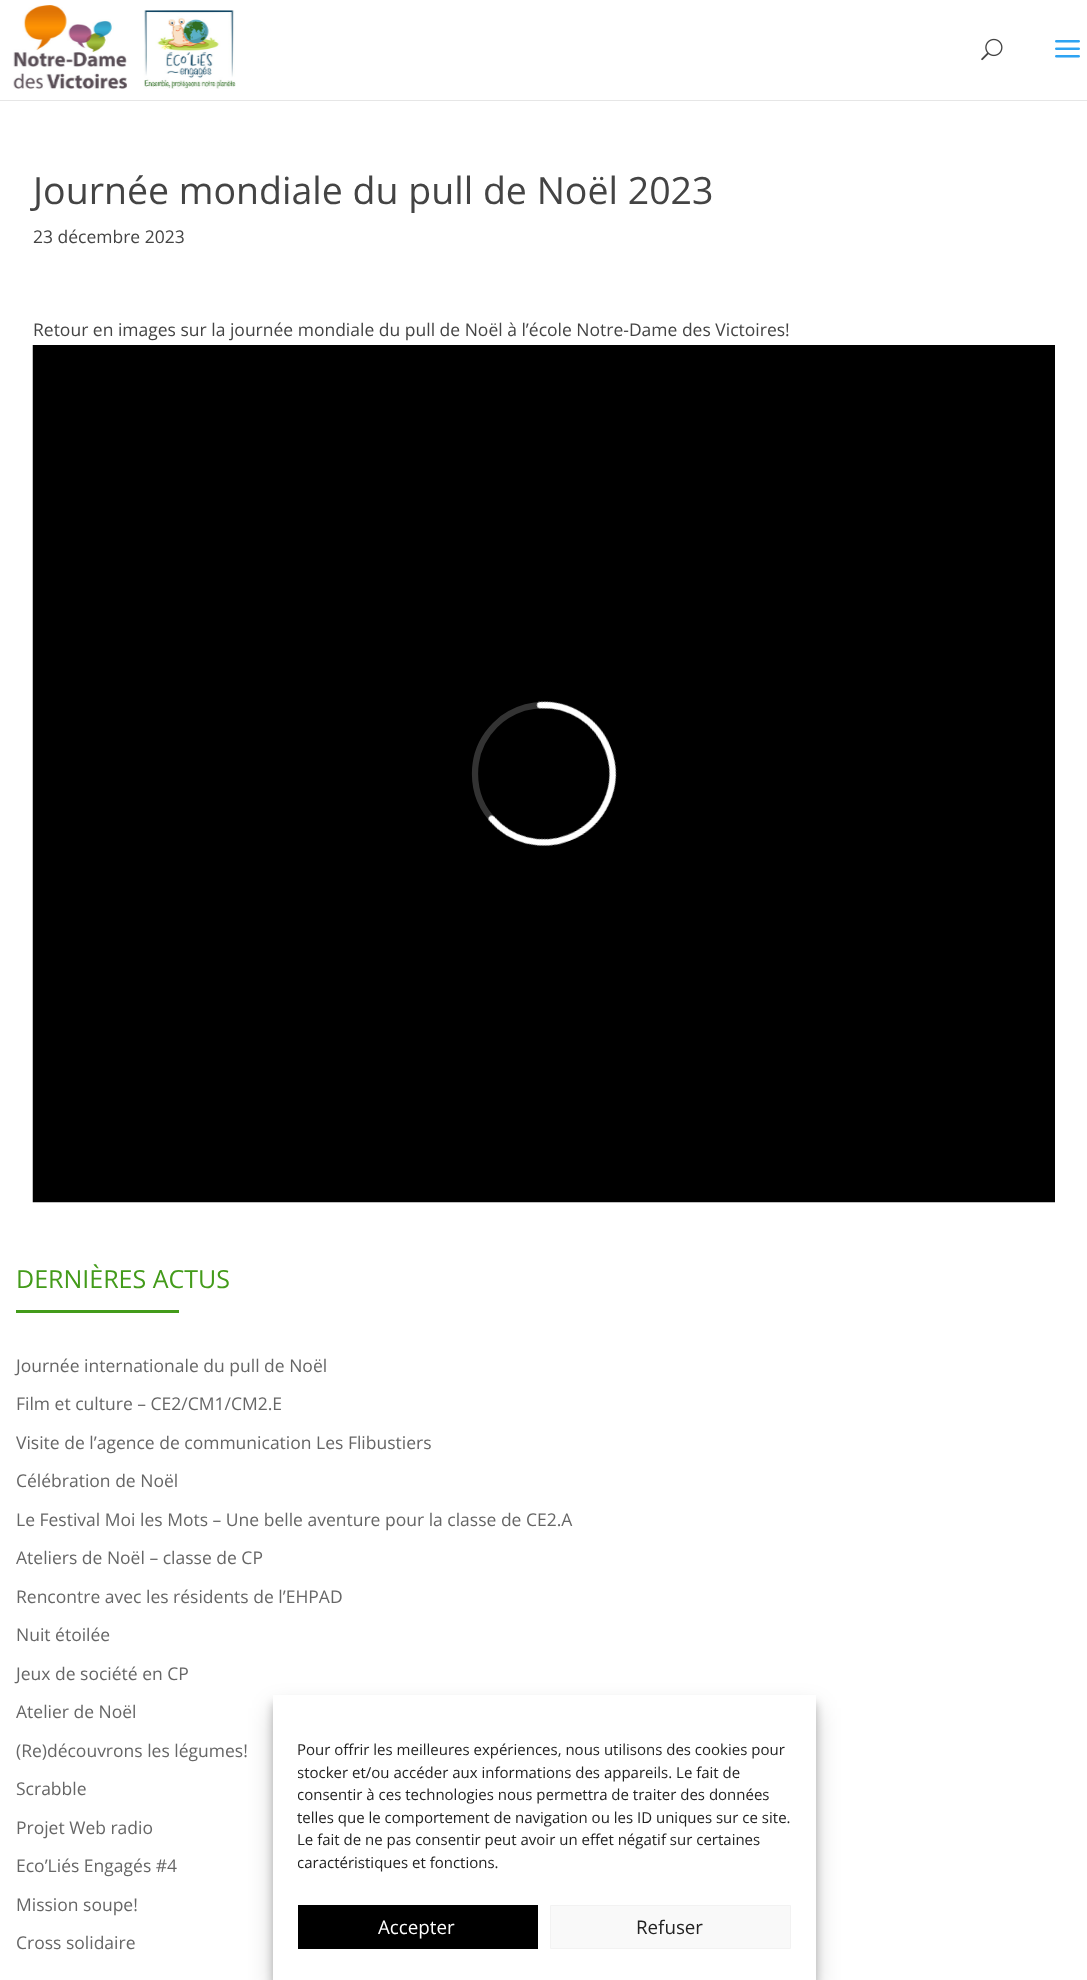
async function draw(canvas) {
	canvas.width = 1087;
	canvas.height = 1980;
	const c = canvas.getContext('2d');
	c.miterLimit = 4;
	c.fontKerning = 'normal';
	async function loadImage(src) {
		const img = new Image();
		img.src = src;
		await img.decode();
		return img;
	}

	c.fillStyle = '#fff';
	c.fillRect(0, 0, 1087, 1980);
	c.fillStyle = '#e6e6e6';
	c.beginPath();
	c.moveTo(0, 100);
	c.lineTo(0, 101);
	c.lineTo(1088, 101);
	c.lineTo(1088, 1);
	c.lineTo(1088, 100);
	c.closePath();
	c.fill();
	c.drawImage(await loadImage('img1.png'), 13, 5, 223, 84);
	c.drawImage(await loadImage('img2.png'), 981, 38, 22, 23);
	c.drawImage(await loadImage('img3.png'), 1055, 40, 25, 18);
	c.font = '37.5px Open Sans';
	c.fillStyle = '#444';
	c.fillText('Journée mondiale du pull de Noël 2023', 33, 204);
	c.font = '17.5px Open Sans';
	c.fillText('23 décembre 2023', 33, 243);
	c.fillText('Retour en images sur la journée mondiale du pull de Noël à l’école Notre-Dame des Victoires!', 33, 336);
	c.drawImage(await loadImage('img4.png'), 32, 345, 1023, 858);
	c.font = '25px Open Sans';
	c.fillStyle = '#439b1a';
	c.fillText('DERNIÈRES ACTUS', 16, 1288);
	c.fillRect(16, 1310, 163, 3);
	c.font = '17.5px Open Sans';
	c.fillStyle = '#666';
	for (const [text, x, y] of [
		['Journée internationale du pull de Noël', 16, 1372],
		['Film et culture – CE2/CM1/CM2.E', 16, 1410],
		['Visite de l’agence de communication Les Flibustiers', 16, 1449],
		['Célébration de Noël', 16, 1487],
		['Le Festival Moi les Mots – Une belle aventure pour la classe de CE2.A', 16, 1526],
		['Ateliers de Noël – classe de CP', 16, 1564],
		['Rencontre avec les résidents de l’EHPAD', 16, 1603],
		['Nuit étoilée', 16, 1641],
		['Jeux de société en CP', 16, 1680],
		['Atelier de Noël', 16, 1718],
		['(Re)découvrons les légumes!', 16, 1757],
		['Scrabble', 16, 1795],
		['Projet Web radio', 16, 1834],
		['Eco’Liés Engagés #4', 16, 1872],
		['Mission soupe!', 16, 1911],
		['Cross solidaire', 16, 1949],
	]) {
		c.fillText(text, x, y);
	}
	c.fillStyle = '#0000003b';
	c.filter = 'blur(4px)';
	c.beginPath();
	c.rect(273, 1703, 543, 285);
	c.fill();
	c.filter = 'none';
	c.fillStyle = '#00000030';
	c.filter = 'blur(12.5px)';
	c.beginPath();
	c.rect(273, 1708, 543, 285);
	c.fill();
	c.filter = 'none';
	c.fillStyle = '#fff';
	c.fillRect(273, 1695, 543, 285);
	c.font = '15px Open Sans';
	c.fillStyle = '#222';
	c.fillText('Pour offrir les meilleures expériences, nous utilisons des cookies pour', 297, 1755);
	c.save();
	c.beginPath();
	c.rect(298, 1739, 493, 141);
	c.clip();
	c.fillText('stocker et/ou accéder aux informations des appareils. Le fait de', 297, 1778);
	c.fillText('consentir à ces technologies nous permettra de traiter des données', 297, 1800);
	c.restore();
	c.fillText('telles que le comportement de navigation ou les ID uniques sur ce site.', 297, 1823);
	c.fillText('Le fait de ne pas consentir peut avoir un effet négatif sur certaines', 297, 1845);
	c.save();
	c.beginPath();
	c.rect(298, 1739, 493, 141);
	c.clip();
	c.fillText('caractéristiques et fonctions.', 297, 1868);
	c.restore();
	c.fillStyle = '#000';
	c.fillRect(298, 1905, 240, 44);
	c.font = '18.75px Open Sans';
	c.fillStyle = '#fff';
	c.fillText('Accepter', 378, 1934);
	c.fillStyle = '#f9f9f9';
	c.beginPath();
	c.rect(550.5, 1905.5, 240, 43);
	c.fill();
	c.strokeStyle = '#f2f2f2';
	c.stroke();
	c.fillStyle = '#222';
	c.fillText('Refuser', 636, 1934);
}

draw(document.querySelector('canvas'));
